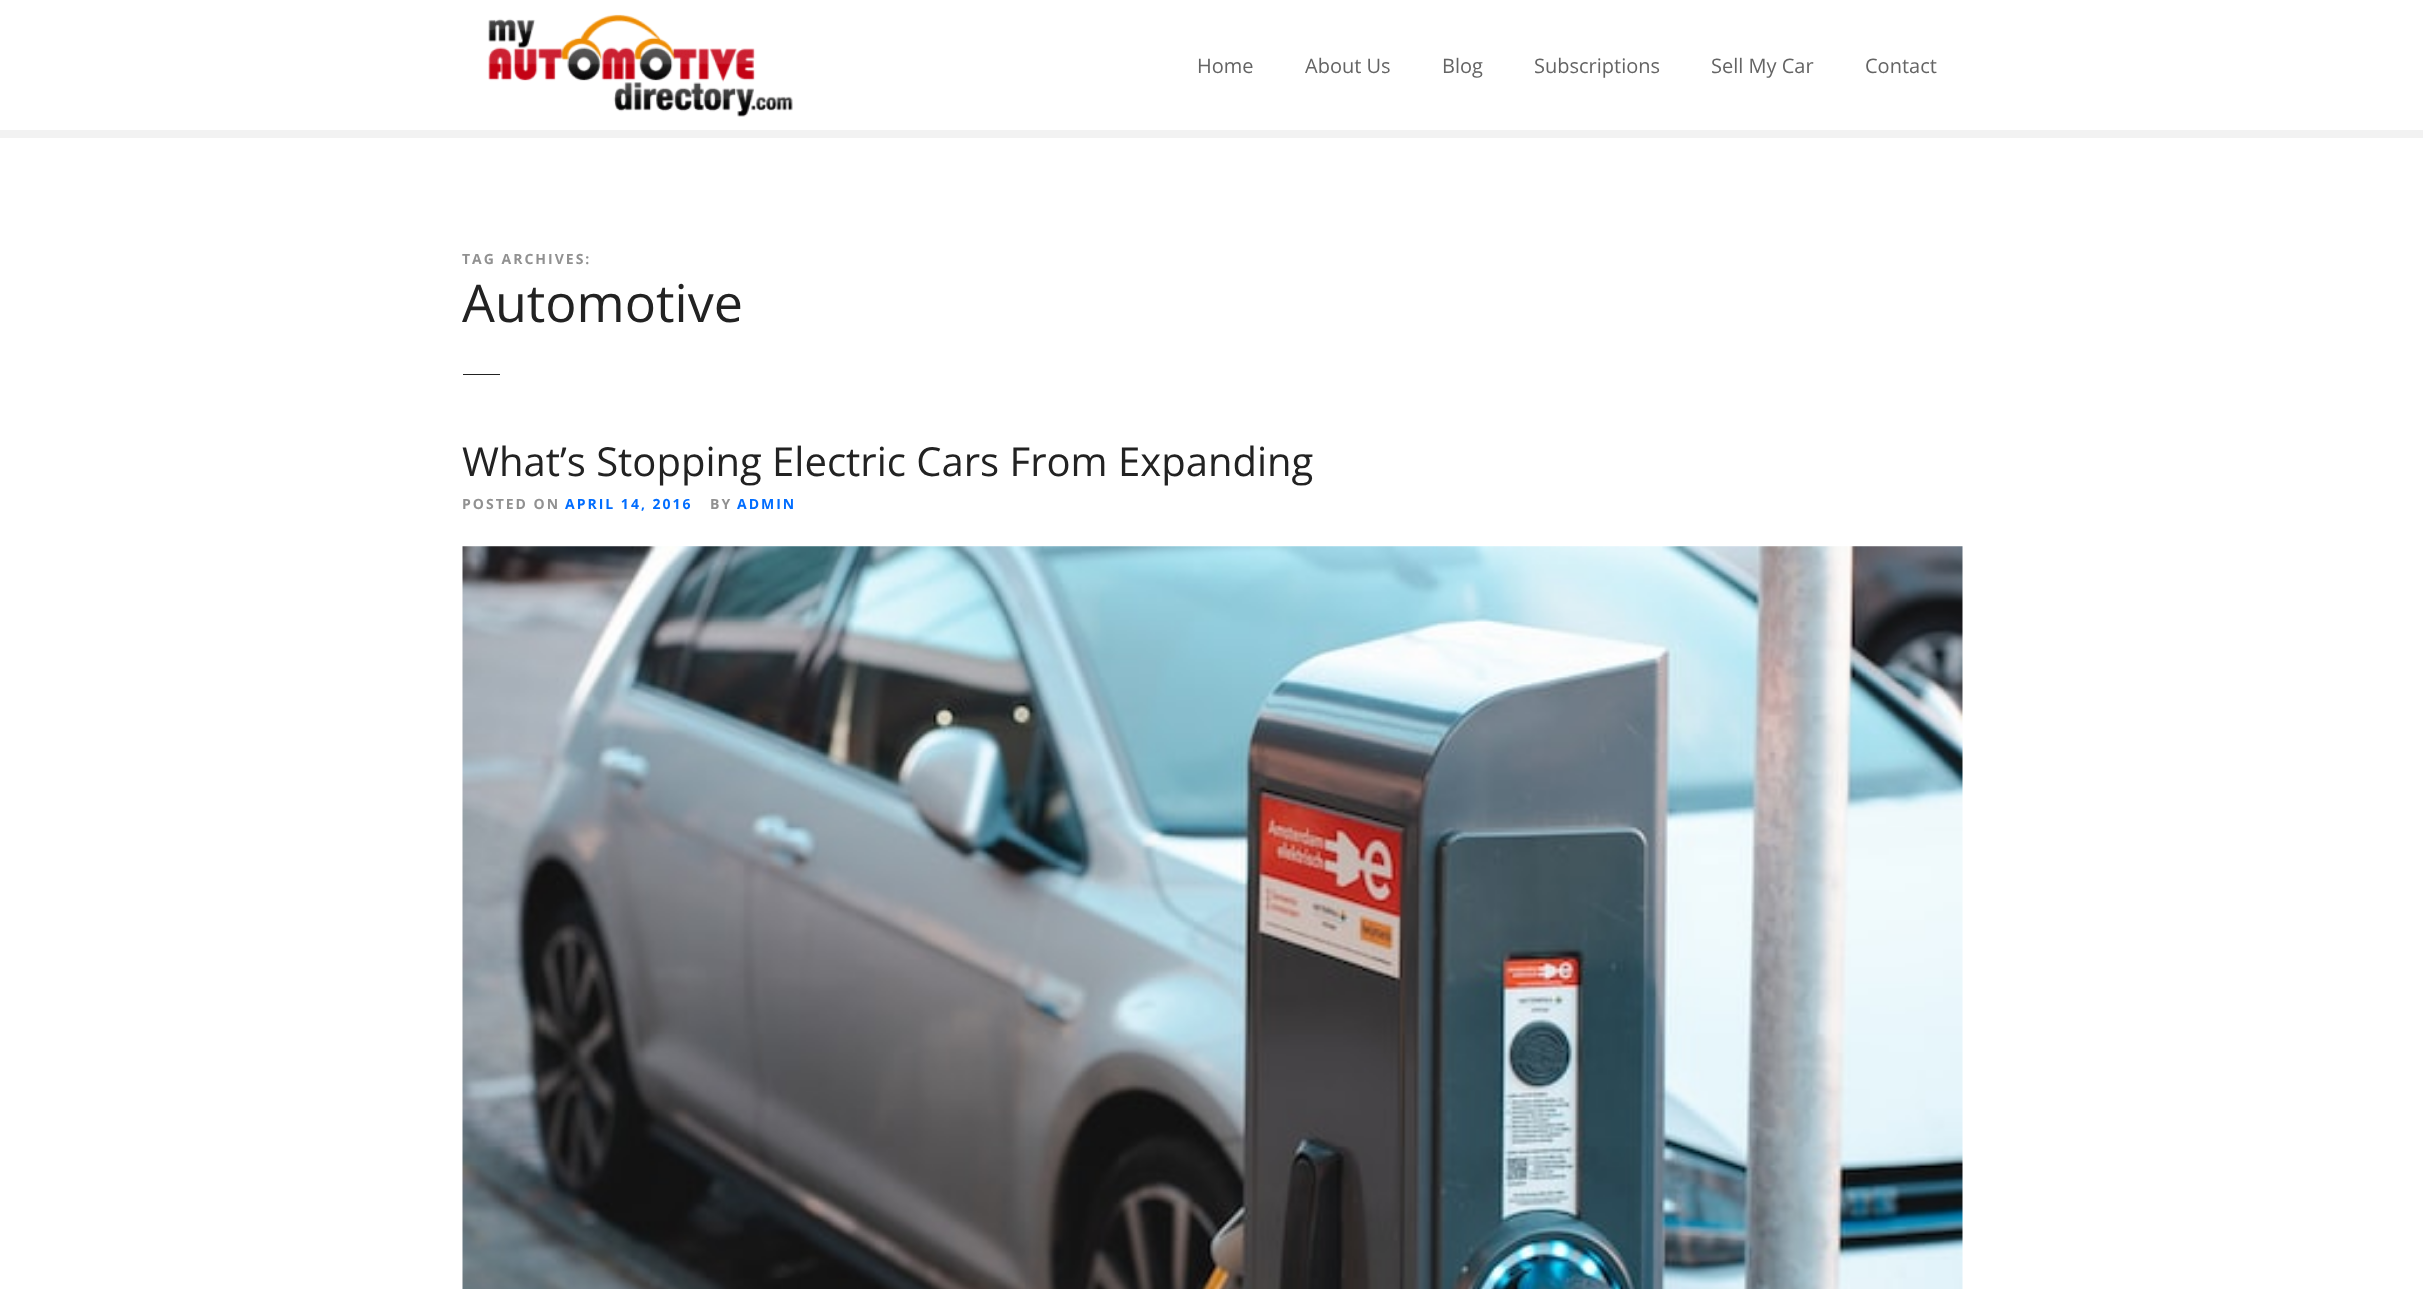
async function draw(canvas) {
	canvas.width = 2423;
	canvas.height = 1289;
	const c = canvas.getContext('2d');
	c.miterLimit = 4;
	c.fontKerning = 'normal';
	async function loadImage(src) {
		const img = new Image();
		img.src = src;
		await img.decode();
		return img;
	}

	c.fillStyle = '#fff';
	c.fillRect(0, 0, 2423, 1289);
	c.drawImage(await loadImage('img1.png'), 488, 14, 305, 103);
	c.font = '20px Open Sans';
	c.fillStyle = '#646464';
	for (const [text, x, y] of [
		['Home', 1197, 73],
		['About Us', 1305, 73],
		['Blog', 1442, 73],
		['Subscriptions', 1534, 73],
		['Sell My Car', 1711, 73],
		['Contact', 1865, 73],
	]) {
		c.fillText(text, x, y);
	}
	c.fillStyle = '#f2f2f2';
	c.fillRect(0, 130, 2423, 8);
	c.letterSpacing = '2px';
	c.font = 'bold 14px Open Sans';
	c.fillStyle = '#919191';
	c.fillText('TAG ARCHIVES:', 462, 264);
	c.letterSpacing = '0px';
	c.font = '52px Open Sans';
	c.fillStyle = '#222';
	c.fillText('Automotive', 462, 322);
	c.fillRect(463, 374, 37, 1);
	c.font = '40px Open Sans';
	c.fillText('What’s Stopping Electric Cars From Expanding', 462, 476);
	c.letterSpacing = '2px';
	c.font = 'bold 14px Open Sans';
	c.fillStyle = '#919191';
	c.fillText('POSTED ON', 462, 509);
	c.fillStyle = '#016dff';
	c.fillText('APRIL 14, 2016', 565, 509);
	c.fillStyle = '#919191';
	c.fillText('BY', 710, 509);
	c.fillStyle = '#016dff';
	c.fillText('ADMIN', 737, 509);
	c.drawImage(await loadImage('img2.png'), 462, 546, 1501, 743);
}

draw(document.querySelector('canvas'));
